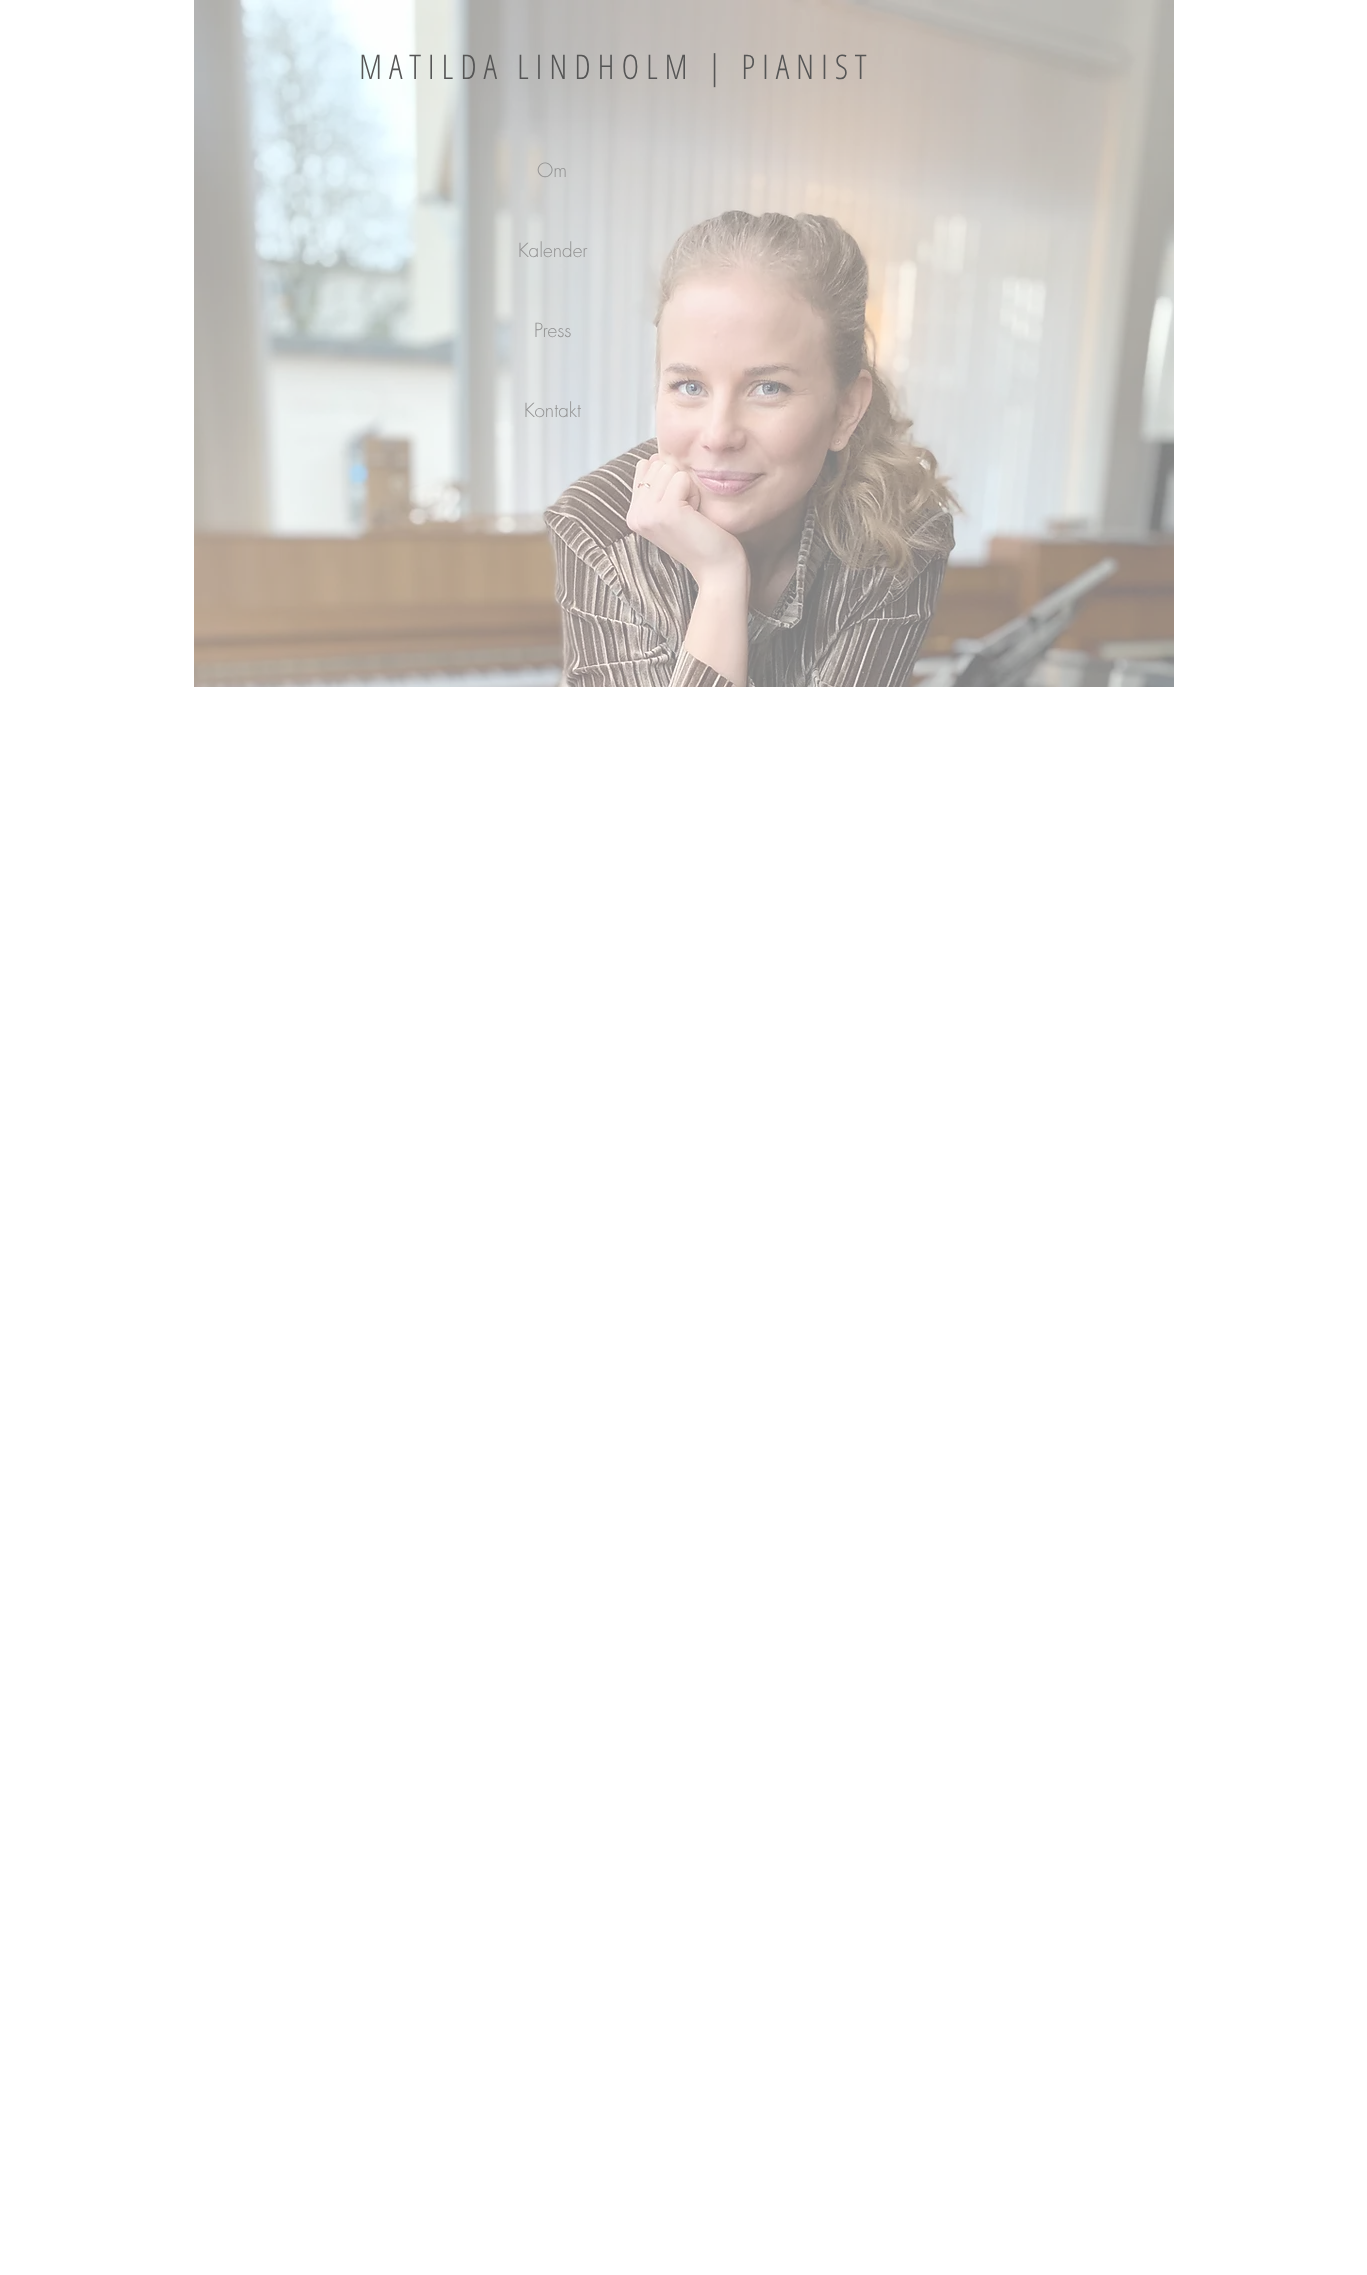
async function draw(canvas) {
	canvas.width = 1367;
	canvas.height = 2275;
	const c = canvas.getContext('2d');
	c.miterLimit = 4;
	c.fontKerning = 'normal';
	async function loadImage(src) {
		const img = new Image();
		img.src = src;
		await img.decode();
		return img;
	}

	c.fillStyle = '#fff';
	c.fillRect(0, 0, 1367, 2275);
	c.drawImage(await loadImage('img1.png'), 194, 0, 980, 687);
	c.letterSpacing = '6.8px';
	c.font = '300 34px Open Sans Condensed';
	c.fillStyle = '#555';
	c.fillText('MATILDA LINDHOLM | PIANIST', 359, 79);
	c.letterSpacing = '0px';
	c.font = '300 19px futura';
	c.fillStyle = '#919191';
	for (const [text, x, y] of [
		['Om', 537, 177],
		['Kalender', 518, 257],
		['Press', 534, 337],
		['Kontakt', 524, 417],
	]) {
		c.fillText(text, x, y);
	}
}

draw(document.querySelector('canvas'));
